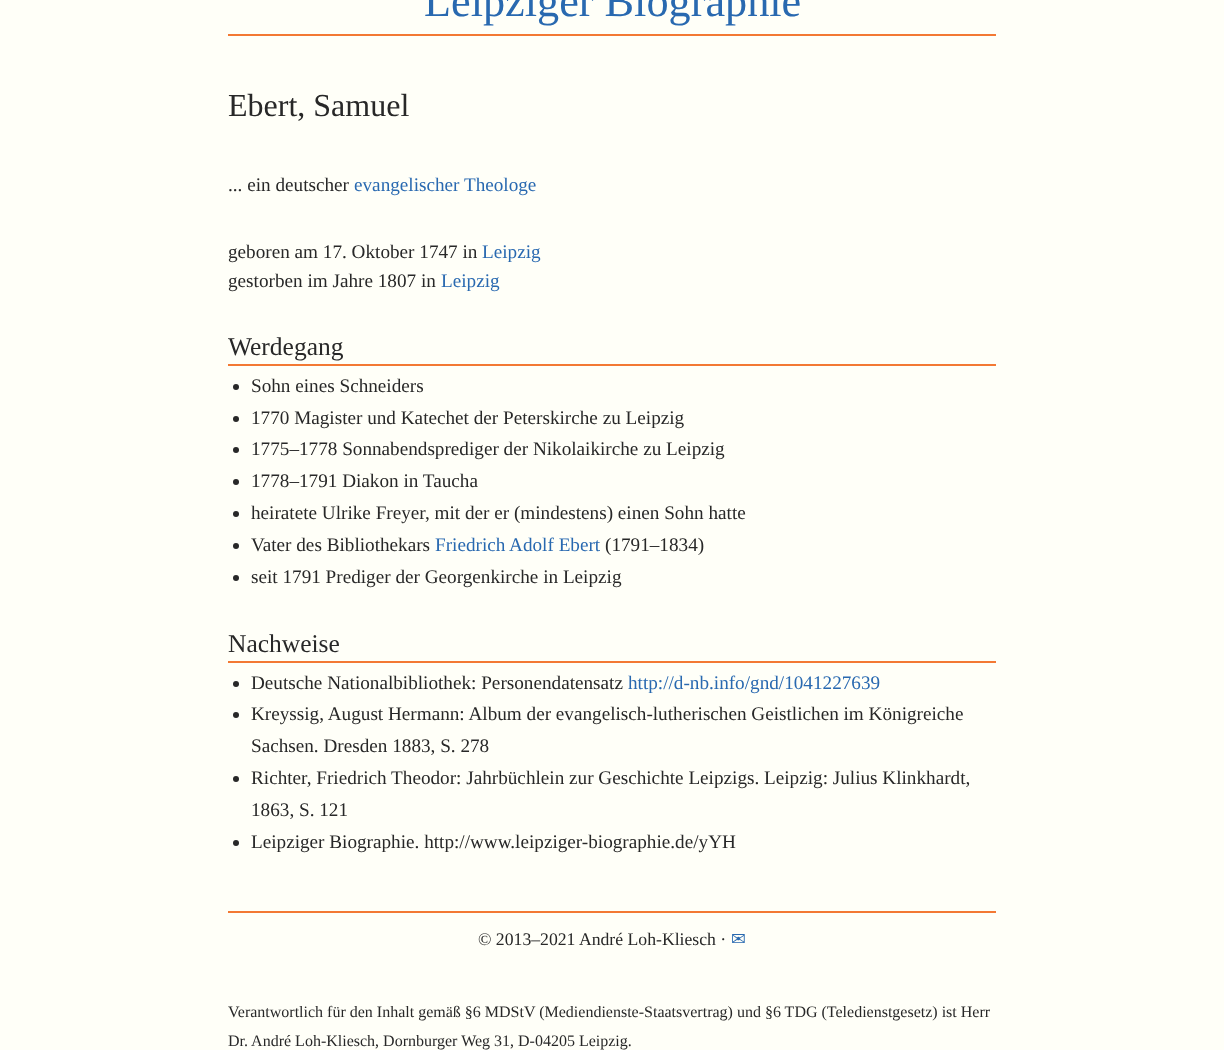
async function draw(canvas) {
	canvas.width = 1224;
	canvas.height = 1050;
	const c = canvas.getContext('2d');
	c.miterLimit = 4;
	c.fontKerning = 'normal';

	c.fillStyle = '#fffff8';
	c.fillRect(0, 0, 1224, 1050);
	c.fillStyle = '#f37934';
	c.fillRect(228, 34, 768, 2);
	c.font = '44.25px Liberation Serif';
	c.fillStyle = '#2969b0';
	c.fillText('Leipziger Biographie', 424, 16);
	c.font = '32px Liberation Serif';
	c.fillStyle = '#282828';
	c.fillText('Ebert, Samuel', 228, 116);
	c.font = '19.2px Liberation Serif';
	c.fillText('... ein deutscher', 228, 191);
	c.fillStyle = '#2969b0';
	c.fillText('evangelischer Theologe', 354, 191);
	c.fillStyle = '#282828';
	c.fillText('geboren am 17. Oktober 1747 in', 228, 258);
	c.fillStyle = '#2969b0';
	c.fillText('Leipzig', 482, 258);
	c.fillStyle = '#282828';
	c.fillText('gestorben im Jahre 1807 in', 228, 287);
	c.fillStyle = '#2969b0';
	c.fillText('Leipzig', 441, 287);
	c.fillStyle = '#f37934';
	c.fillRect(228, 364, 768, 2);
	c.font = '25.5px Liberation Serif';
	c.fillStyle = '#282828';
	c.fillText('Werdegang', 228, 355);
	c.beginPath();
	c.arc(236, 387, 3, 0, 2 * Math.PI);
	c.fill();
	c.font = '19.2px Liberation Serif';
	c.fillText('Sohn eines Schneiders', 251, 392);
	c.beginPath();
	c.arc(236, 419, 3, 0, 2 * Math.PI);
	c.fill();
	c.fillText('1770 Magister und Katechet der Peterskirche zu Leipzig', 251, 424);
	c.beginPath();
	c.arc(236, 450, 3, 0, 2 * Math.PI);
	c.fill();
	c.fillText('1775–1778 Sonnabendsprediger der Nikolaikirche zu Leipzig', 251, 455);
	c.beginPath();
	c.arc(236, 482, 3, 0, 2 * Math.PI);
	c.fill();
	c.fillText('1778–1791 Diakon in Taucha', 251, 487);
	c.beginPath();
	c.arc(236, 514, 3, 0, 2 * Math.PI);
	c.fill();
	c.fillText('heiratete Ulrike Freyer, mit der er (mindestens) einen Sohn hatte', 251, 519);
	c.beginPath();
	c.arc(236, 546, 3, 0, 2 * Math.PI);
	c.fill();
	c.fillText('Vater des Bibliothekars', 251, 551);
	c.fillStyle = '#2969b0';
	c.fillText('Friedrich Adolf Ebert', 435, 551);
	c.fillStyle = '#282828';
	c.fillText('(1791–1834)', 605, 551);
	c.beginPath();
	c.arc(236, 578, 3, 0, 2 * Math.PI);
	c.fill();
	c.fillText('seit 1791 Prediger der Georgenkirche in Leipzig', 251, 583);
	c.fillStyle = '#f37934';
	c.fillRect(228, 661, 768, 2);
	c.font = '25.5px Liberation Serif';
	c.fillStyle = '#282828';
	c.fillText('Nachweise', 228, 652);
	c.beginPath();
	c.arc(236, 684, 3, 0, 2 * Math.PI);
	c.fill();
	c.font = '19.2px Liberation Serif';
	c.fillText('Deutsche Nationalbibliothek: Personendatensatz', 251, 689);
	c.fillStyle = '#2969b0';
	c.fillText('http://d-nb.info/gnd/1041227639', 628, 689);
	c.fillStyle = '#282828';
	c.beginPath();
	c.arc(236, 715, 3, 0, 2 * Math.PI);
	c.fill();
	c.fillText('Kreyssig, August Hermann: Album der evangelisch-lutherischen Geistlichen im Königreiche', 251, 720);
	c.fillText('Sachsen. Dresden 1883, S. 278', 251, 752);
	c.beginPath();
	c.arc(236, 779, 3, 0, 2 * Math.PI);
	c.fill();
	c.fillText('Richter, Friedrich Theodor: Jahrbüchlein zur Geschichte Leipzigs. Leipzig: Julius Klinkhardt,', 251, 784);
	c.fillText('1863, S. 121', 251, 816);
	c.beginPath();
	c.arc(236, 843, 3, 0, 2 * Math.PI);
	c.fill();
	c.fillText('Leipziger Biographie. http://www.leipziger-biographie.de/yYH', 251, 848);
	c.fillStyle = '#f37934';
	c.fillRect(228, 911, 768, 2);
	c.font = '17.7px Liberation Serif';
	c.fillStyle = '#282828';
	c.fillText('© 2013–2021 André Loh-Kliesch ·', 478, 945);
	c.font = '17.7px DejaVu Sans';
	c.fillStyle = '#2969b0';
	c.fillText('✉︎', 731, 945);
	c.font = '16px Liberation Serif';
	c.fillStyle = '#282828';
	c.fillText('Verantwortlich für den Inhalt gemäß §6 MDStV (Mediendienste-Staatsvertrag) und §6 TDG (Teledienstgesetz) ist Herr', 228, 1017);
	c.fillText('Dr. André Loh-Kliesch, Dornburger Weg 31, D-04205 Leipzig.', 228, 1046);
}

draw(document.querySelector('canvas'));
